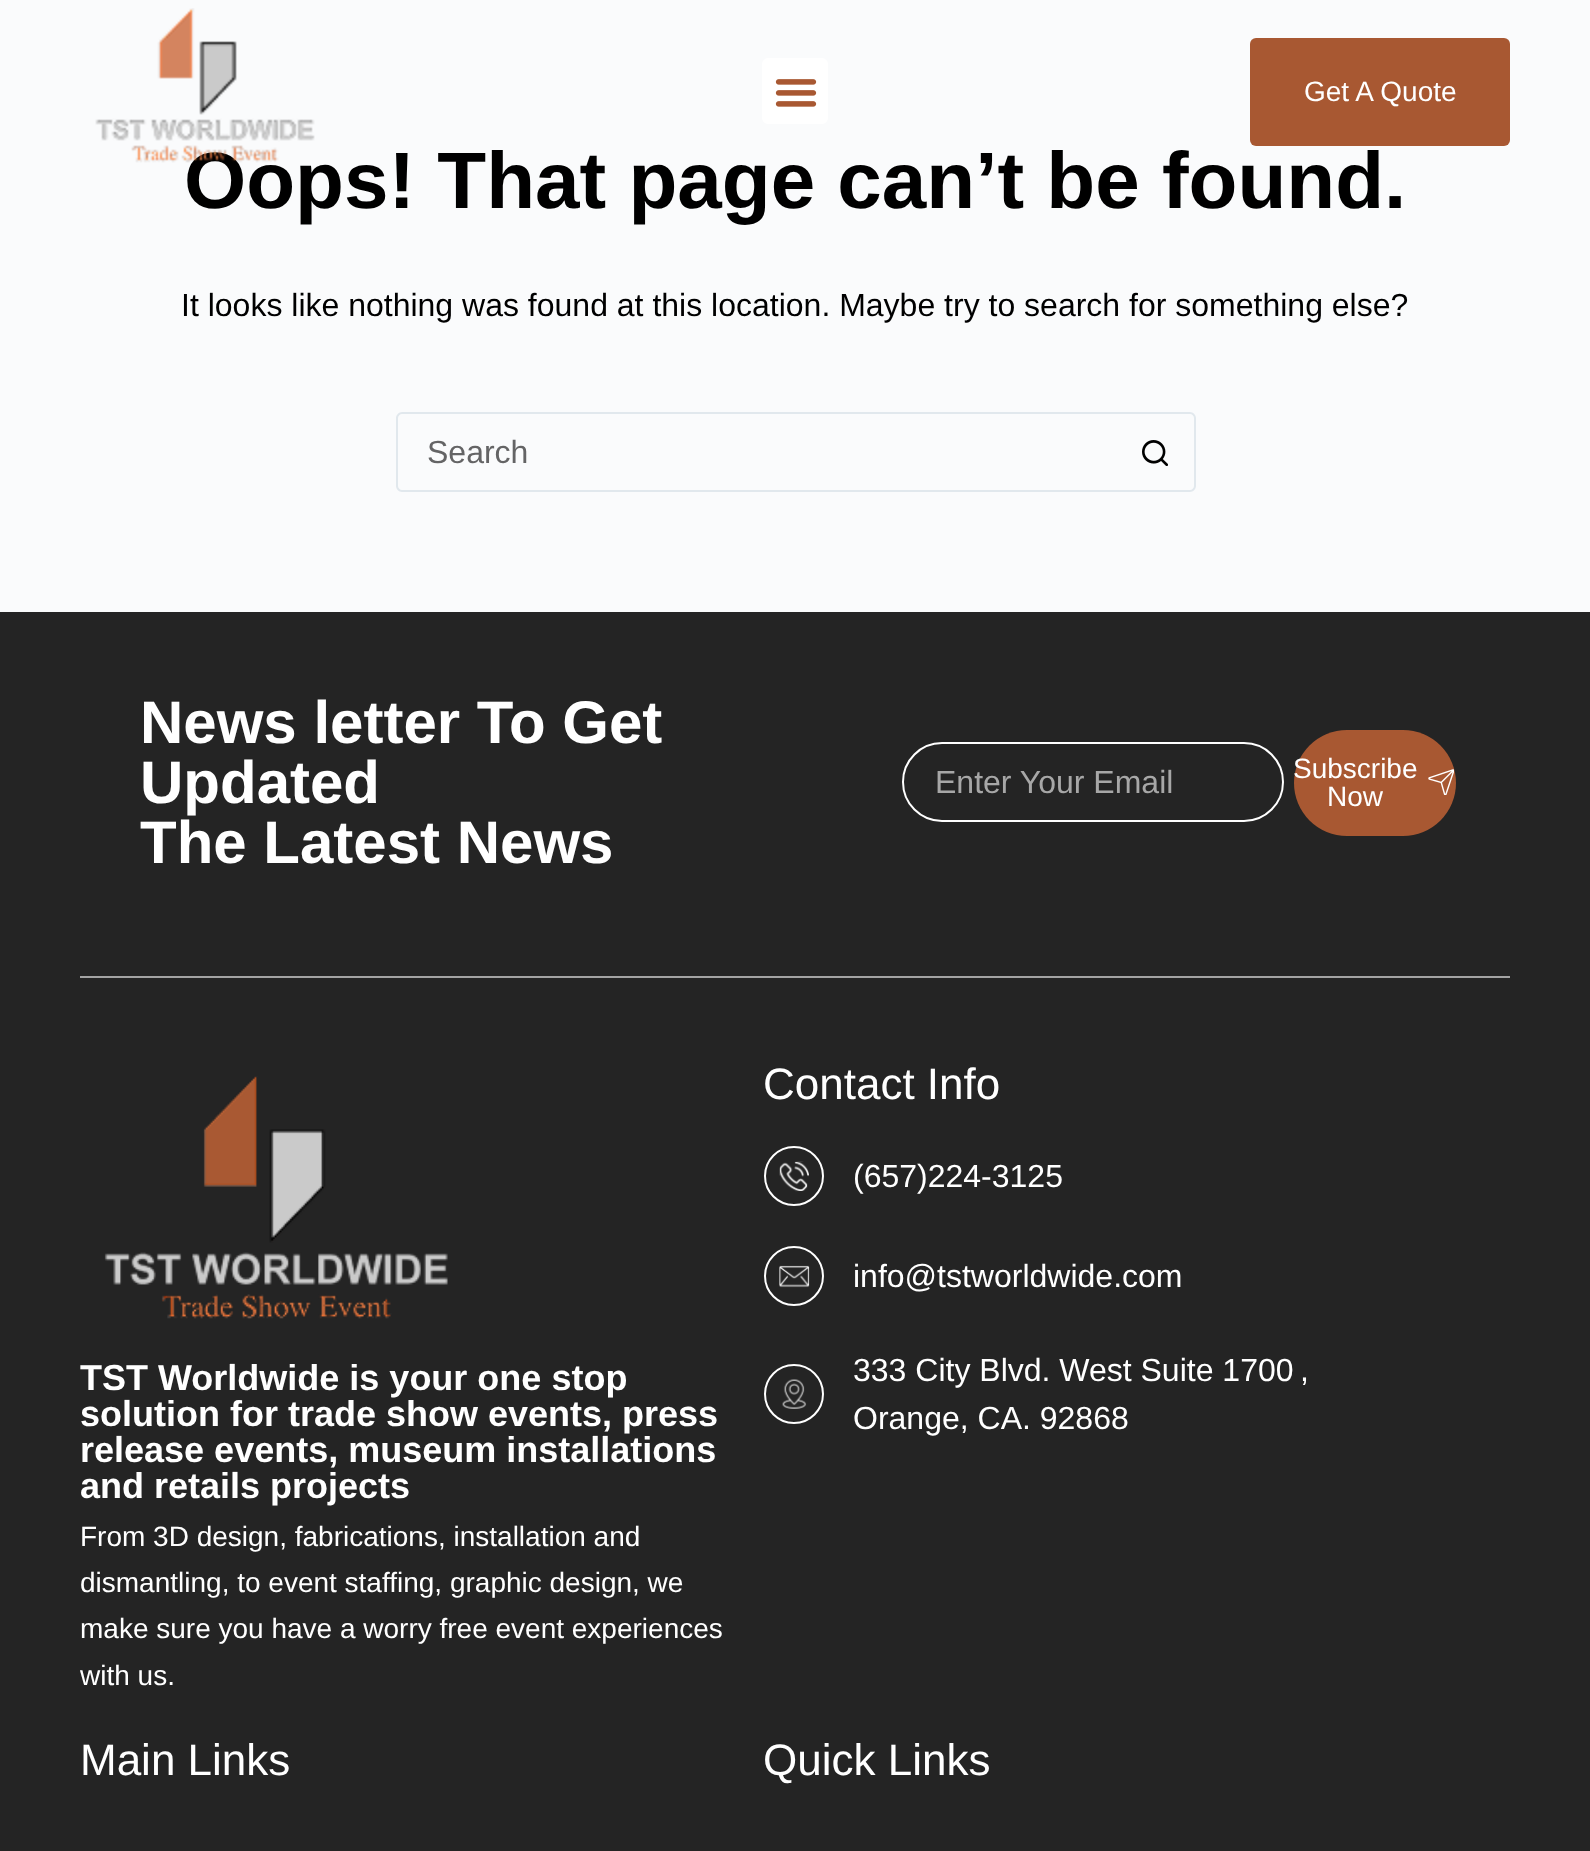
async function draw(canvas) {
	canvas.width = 1590;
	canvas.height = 1851;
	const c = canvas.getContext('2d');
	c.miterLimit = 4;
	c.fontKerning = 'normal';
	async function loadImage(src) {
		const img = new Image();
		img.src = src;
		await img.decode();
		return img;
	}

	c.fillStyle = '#fafbfc';
	c.fillRect(0, 0, 1590, 1851);
	c.font = 'bold 80px Liberation Sans';
	c.fillStyle = '#000';
	c.fillText('Oops! That page can’t be found.', 184, 208);
	c.drawImage(await loadImage('img1.png'), 95, 8, 220, 155);
	c.fillStyle = '#fff';
	c.beginPath();
	c.roundRect(762, 58, 66, 66, 6);
	c.fill();
	c.drawImage(await loadImage('img2.png'), 775, 79, 42, 28);
	c.fillStyle = '#a85832';
	c.beginPath();
	c.roundRect(1250, 38, 260, 108, 6);
	c.fill();
	c.font = '28px Liberation Sans';
	c.fillStyle = '#fff';
	c.fillText('Get A Quote', 1304, 101);
	c.font = '32px Liberation Sans';
	c.fillStyle = '#000';
	c.fillText('It looks like nothing was found at this location. Maybe try to search for something else?', 181, 316);
	c.fillStyle = '#e1e8ed';
	c.beginPath();
	c.moveTo(402, 412);
	c.lineTo(1116, 412);
	c.lineTo(1116, 492);
	c.lineTo(402, 492);
	c.bezierCurveTo(399, 492, 396, 489, 396, 486);
	c.lineTo(396, 418);
	c.bezierCurveTo(396, 415, 399, 412, 402, 412);
	c.closePath();
	c.moveTo(402, 414);
	c.lineTo(1116, 414);
	c.lineTo(1116, 490);
	c.lineTo(402, 490);
	c.bezierCurveTo(400, 490, 398, 488, 398, 486);
	c.lineTo(398, 418);
	c.bezierCurveTo(398, 416, 400, 414, 402, 414);
	c.closePath();
	c.fill('evenodd');
	c.fillStyle = '#646465';
	c.fillText('Search', 427, 463);
	c.fillStyle = '#e1e8ed';
	c.beginPath();
	c.moveTo(1116, 412);
	c.lineTo(1190, 412);
	c.bezierCurveTo(1193, 412, 1196, 415, 1196, 418);
	c.lineTo(1196, 486);
	c.bezierCurveTo(1196, 489, 1193, 492, 1190, 492);
	c.lineTo(1116, 492);
	c.closePath();
	c.moveTo(1116, 414);
	c.lineTo(1190, 414);
	c.bezierCurveTo(1192, 414, 1194, 416, 1194, 418);
	c.lineTo(1194, 486);
	c.bezierCurveTo(1194, 488, 1192, 490, 1190, 490);
	c.lineTo(1116, 490);
	c.closePath();
	c.fill('evenodd');
	c.drawImage(await loadImage('img3.png'), 1142, 440, 26, 26);
	c.fillStyle = '#242424';
	c.fillRect(0, 612, 1590, 1239);
	c.font = 'bold 60px Liberation Sans';
	c.fillStyle = '#fff';
	for (const [text, x, y] of [
		['News letter To Get', 140, 743],
		['Updated', 140, 803],
		['The Latest News', 140, 863],
	]) {
		c.fillText(text, x, y);
	}
	c.beginPath();
	c.roundRect(903, 743, 380, 78, 39);
	c.strokeStyle = '#fff';
	c.lineWidth = 2;
	c.stroke();
	c.font = '32px Liberation Sans';
	c.fillStyle = '#a7a7a7';
	c.fillText('Enter Your Email', 935, 793);
	c.fillStyle = '#a85832';
	c.beginPath();
	c.roundRect(1294, 730, 162, 106, 53);
	c.fill();
	c.font = '28px Liberation Sans';
	c.fillStyle = '#fff';
	c.fillText('Subscribe', 1293, 778);
	c.fillText('Now', 1327, 806);
	c.drawImage(await loadImage('img4.png'), 1428, 769, 26, 26);
	c.fillStyle = '#a3a3a3';
	c.fillRect(80, 976, 1430, 2);
	c.font = '44px Liberation Sans';
	c.fillStyle = '#fff';
	c.fillText('Contact Info', 763, 1099);
	c.beginPath();
	c.arc(794, 1176, 29, 0, 2 * Math.PI);
	c.stroke();
	c.drawImage(await loadImage('img5.png'), 779, 1161, 30, 31);
	c.font = '32px Liberation Sans';
	c.fillText('(657)224-3125', 853, 1187);
	c.beginPath();
	c.arc(794, 1276, 29, 0, 2 * Math.PI);
	c.stroke();
	c.drawImage(await loadImage('img6.png'), 779, 1265, 31, 23);
	c.fillText('info@tstworldwide.com', 853, 1287);
	c.beginPath();
	c.arc(794, 1394, 29, 0, 2 * Math.PI);
	c.stroke();
	c.drawImage(await loadImage('img7.png'), 782, 1379, 25, 30);
	c.fillText('333 City Blvd. West Suite 1700 ,', 853, 1381);
	c.fillText('Orange, CA. 92868', 853, 1429);
	c.drawImage(await loadImage('img8.png'), 104, 1076, 344, 243);
	c.font = 'bold 36px Liberation Sans';
	for (const [text, x, y] of [
		['TST Worldwide is your one stop', 80, 1390],
		['solution for trade show events, press', 80, 1426],
		['release events, museum installations', 80, 1462],
		['and retails projects', 80, 1498],
	]) {
		c.fillText(text, x, y);
	}
	c.font = '28px Liberation Sans';
	for (const [text, x, y] of [
		['From 3D design, fabrications, installation and', 80, 1546],
		['dismantling, to event staffing, graphic design, we', 80, 1592],
		['make sure you have a worry free event experiences', 80, 1638],
		['with us.', 80, 1685],
	]) {
		c.fillText(text, x, y);
	}
	c.font = '44px Liberation Sans';
	c.fillText('Main Links', 80, 1775);
	c.fillText('Quick Links', 763, 1775);
}

draw(document.querySelector('canvas'));
